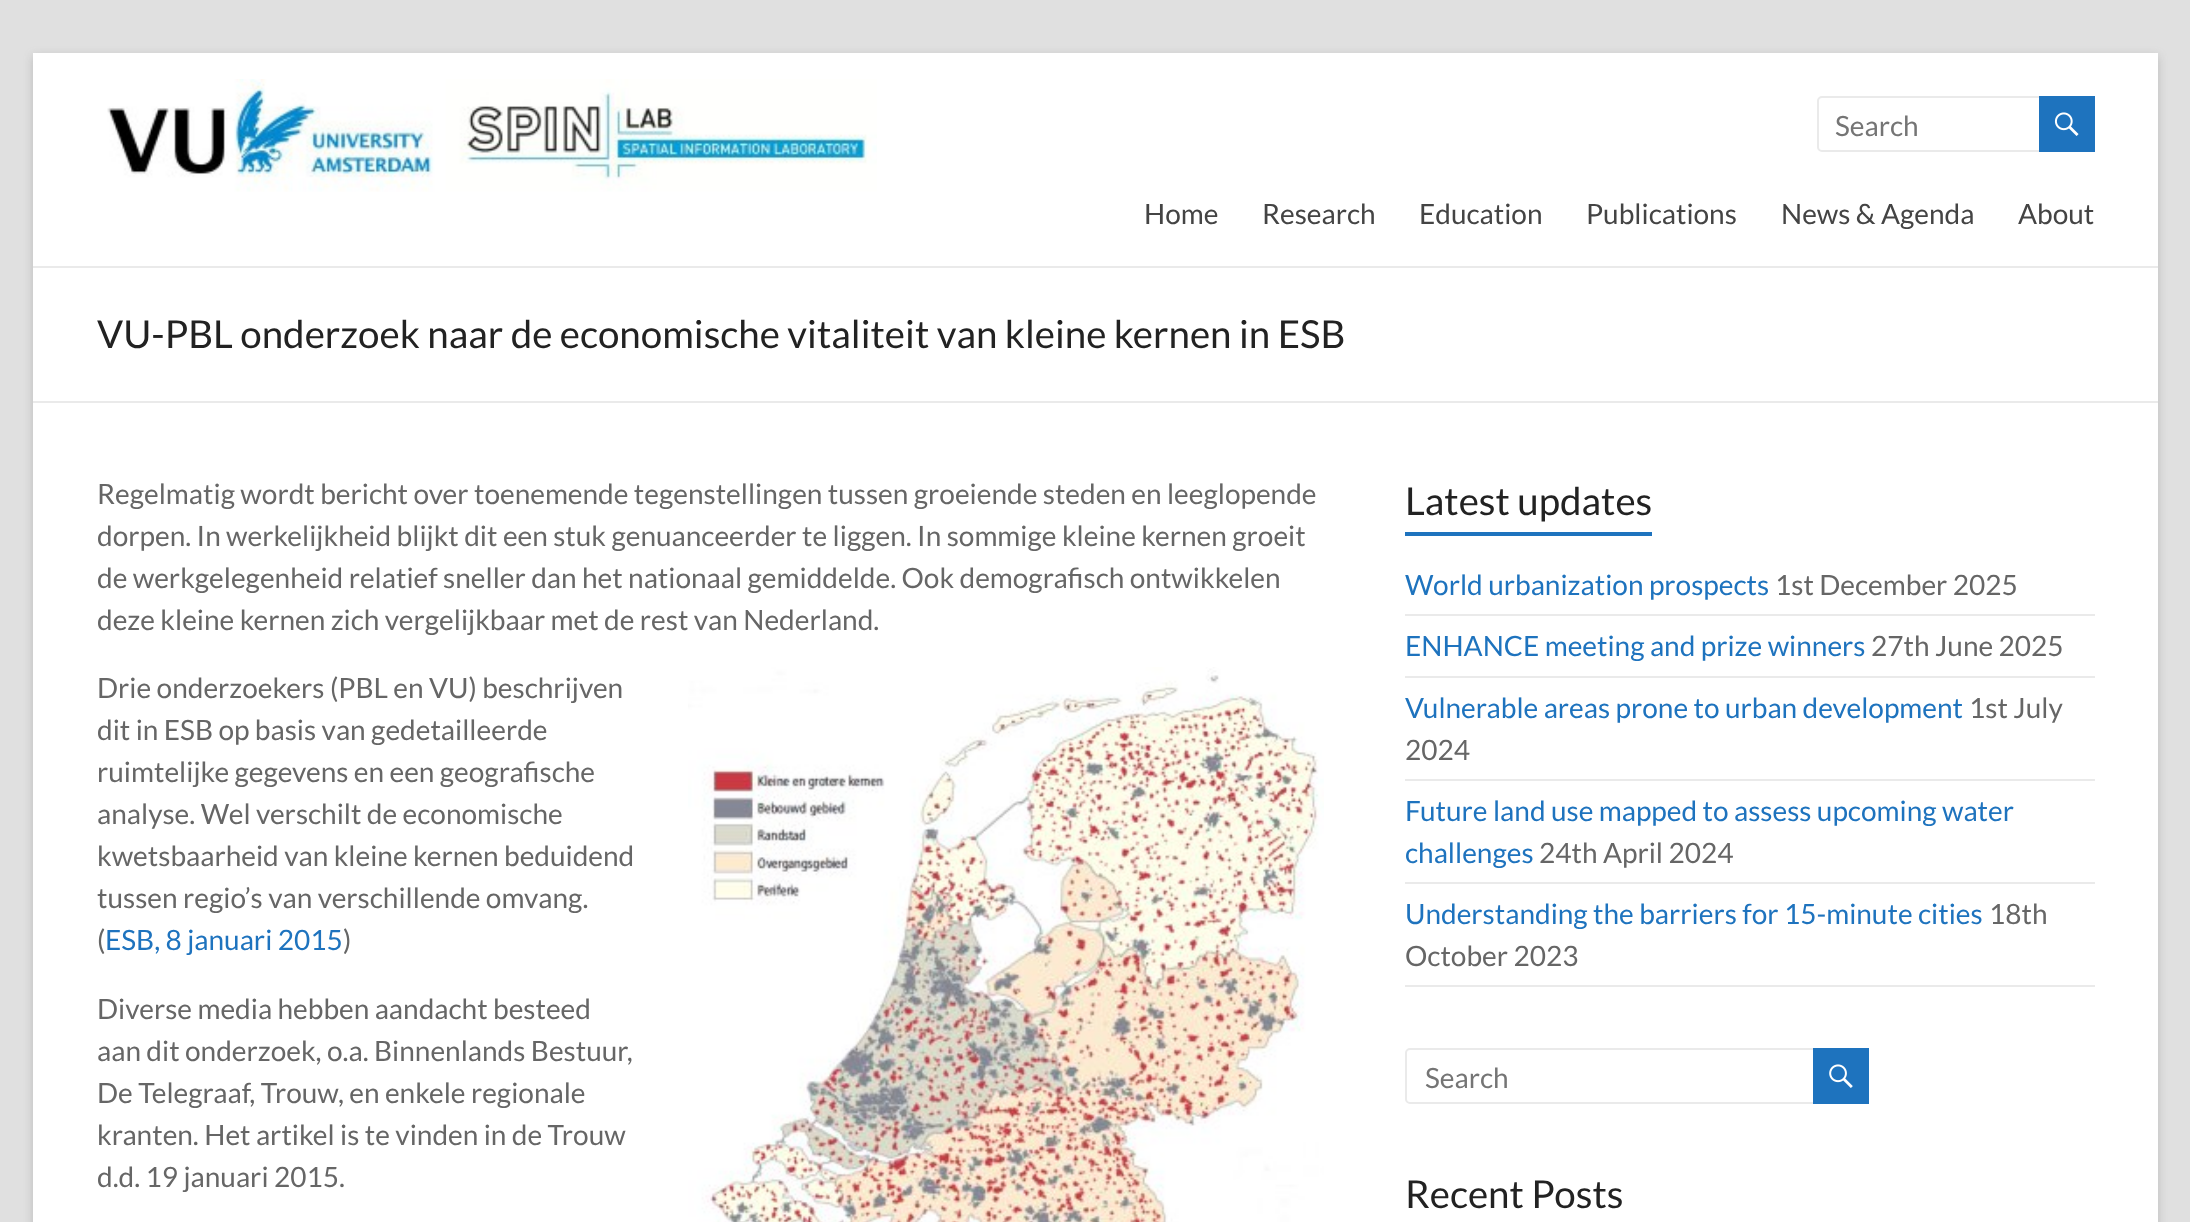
async function draw(canvas) {
	canvas.width = 2190;
	canvas.height = 1222;
	const c = canvas.getContext('2d');
	c.miterLimit = 4;
	c.fontKerning = 'normal';
	async function loadImage(src) {
		const img = new Image();
		img.src = src;
		await img.decode();
		return img;
	}

	c.fillStyle = '#e0e0e0';
	c.fillRect(0, 0, 2190, 1222);
	c.fillStyle = '#6464644d';
	c.filter = 'blur(5px)';
	c.beginPath();
	c.rect(33, 56, 2125, 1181);
	c.fill();
	c.filter = 'none';
	c.fillStyle = '#fff';
	c.fillRect(33, 53, 2125, 1169);
	c.fillStyle = '#eaeaea';
	c.fillRect(33, 266, 2125, 2);
	c.drawImage(await loadImage('img1.png'), 107, 79, 770, 113);
	c.beginPath();
	c.roundRect(1818, 97, 225, 54, 4);
	c.strokeStyle = '#eaeaea';
	c.lineWidth = 2;
	c.stroke();
	c.font = '28px Lato';
	c.fillStyle = '#757575';
	c.fillText('Search', 1835, 136);
	c.fillStyle = '#1e73be';
	c.fillRect(2039, 96, 56, 56);
	c.drawImage(await loadImage('img2.png'), 2054, 112, 25, 24);
	c.fillStyle = '#444';
	for (const [text, x, y] of [
		['Home', 1144, 224],
		['Research', 1262, 224],
		['Education', 1419, 224],
		['Publications', 1586, 224],
		['News & Agenda', 1781, 224],
		['About', 2018, 224],
	]) {
		c.fillText(text, x, y);
	}
	c.fillStyle = '#eaeaea';
	c.fillRect(33, 401, 2125, 2);
	c.font = '38.5px Lato';
	c.fillStyle = '#222';
	c.fillText('VU-PBL onderzoek naar de economische vitaliteit van kleine kernen in ESB', 97, 348);
	c.font = '28px Lato';
	c.fillStyle = '#666';
	for (const [text, x, y] of [
		['Regelmatig wordt bericht over toenemende tegenstellingen tussen groeiende steden en leeglopende', 97, 504],
		['dorpen. In werkelijkheid blijkt dit een stuk genuanceerder te liggen. In sommige kleine kernen groeit', 97, 546],
		['de werkgelegenheid relatief sneller dan het nationaal gemiddelde. Ook demografisch ontwikkelen', 97, 588],
		['deze kleine kernen zich vergelijkbaar met de rest van Nederland.', 97, 630],
		['Drie onderzoekers (PBL en VU) beschrijven', 97, 698],
		['dit in ESB op basis van gedetailleerde', 97, 740],
		['ruimtelijke gegevens en een geografische', 97, 782],
		['analyse. Wel verschilt de economische', 97, 824],
		['kwetsbaarheid van kleine kernen beduidend', 97, 866],
		['tussen regio’s van verschillende omvang.', 97, 908],
		['(', 97, 950],
	]) {
		c.fillText(text, x, y);
	}
	c.fillStyle = '#1e73be';
	c.fillText('ESB, 8 januari 2015', 105, 950);
	c.fillStyle = '#666';
	c.fillText(')', 343, 950);
	c.drawImage(await loadImage('img3.png'), 688, 667, 636, 555);
	for (const [text, x, y] of [
		['Diverse media hebben aandacht besteed', 97, 1019],
		['aan dit onderzoek, o.a. Binnenlands Bestuur,', 97, 1061],
		['De Telegraaf, Trouw, en enkele regionale', 97, 1103],
		['kranten. Het artikel is te vinden in de Trouw', 97, 1145],
		['d.d. 19 januari 2015.', 97, 1187],
	]) {
		c.fillText(text, x, y);
	}
	c.font = '38.5px Lato';
	c.fillStyle = '#222';
	c.fillText('Latest updates', 1405, 515);
	c.fillStyle = '#1e73be';
	c.fillRect(1405, 532, 247, 4);
	c.fillStyle = '#eaeaea';
	c.fillRect(1405, 614, 690, 2);
	c.font = '28px Lato';
	c.fillStyle = '#1e73be';
	c.fillText('World urbanization prospects', 1405, 595);
	c.fillStyle = '#666';
	c.fillText('1st December 2025', 1775, 595);
	c.fillStyle = '#eaeaea';
	c.fillRect(1405, 676, 690, 2);
	c.fillStyle = '#1e73be';
	c.fillText('ENHANCE meeting and prize winners', 1405, 656);
	c.fillStyle = '#666';
	c.fillText('27th June 2025', 1871, 656);
	c.fillStyle = '#eaeaea';
	c.fillRect(1405, 779, 690, 2);
	c.fillStyle = '#1e73be';
	c.fillText('Vulnerable areas prone to urban development', 1405, 718);
	c.fillStyle = '#666';
	c.fillText('1st July', 1969, 718);
	c.fillText('2024', 1405, 760);
	c.fillStyle = '#eaeaea';
	c.fillRect(1405, 882, 690, 2);
	c.fillStyle = '#1e73be';
	c.fillText('Future land use mapped to assess upcoming water', 1405, 821);
	c.fillText('challenges', 1405, 863);
	c.fillStyle = '#666';
	c.fillText('24th April 2024', 1539, 863);
	c.fillStyle = '#eaeaea';
	c.fillRect(1405, 985, 690, 2);
	c.fillStyle = '#1e73be';
	c.fillText('Understanding the barriers for 15-minute cities', 1405, 924);
	c.fillStyle = '#666';
	c.fillText('18th', 1989, 924);
	c.fillText('October 2023', 1405, 966);
	c.beginPath();
	c.roundRect(1406, 1049, 411, 54, 4);
	c.stroke();
	c.fillStyle = '#757575';
	c.fillText('Search', 1425, 1088);
	c.fillStyle = '#1e73be';
	c.fillRect(1813, 1048, 56, 56);
	c.drawImage(await loadImage('img4.png'), 1829, 1064, 24, 24);
	c.font = '38.5px Lato';
	c.fillStyle = '#222';
	c.fillText('Recent Posts', 1405, 1208);
}

draw(document.querySelector('canvas'));
